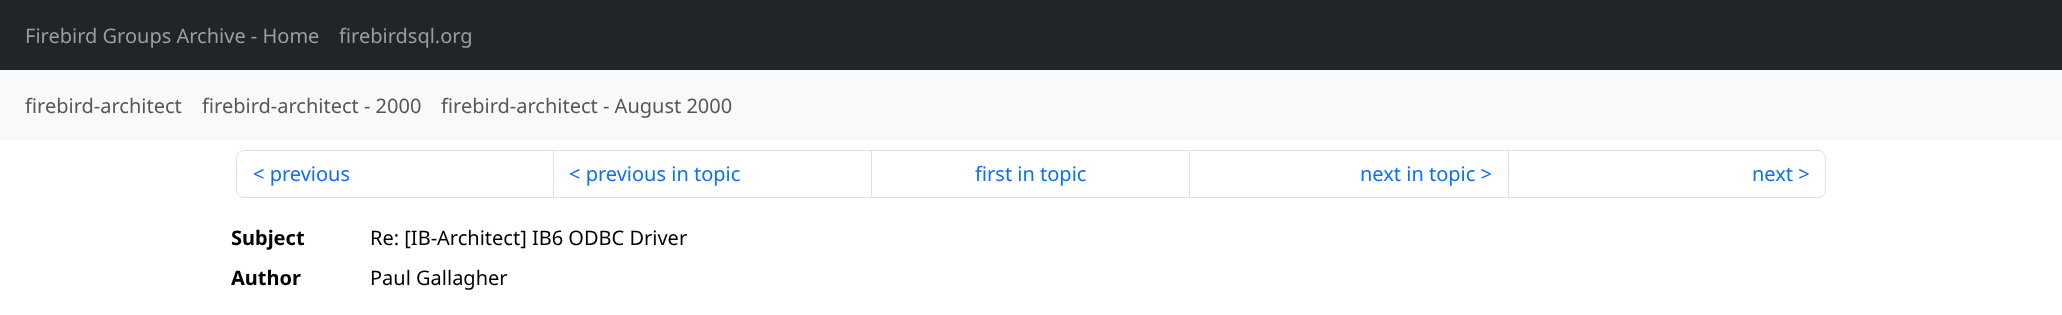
async function draw(canvas) {
	canvas.width = 2062;
	canvas.height = 315;
	const c = canvas.getContext('2d');
	c.miterLimit = 4;
	c.fontKerning = 'normal';

	c.fillStyle = '#fff';
	c.fillRect(0, 0, 2062, 315);
	c.fillStyle = '#212529';
	c.fillRect(0, 0, 2062, 70);
	c.font = '20px Noto Sans';
	c.fillStyle = '#9b9d9f';
	c.fillText('Firebird Groups Archive - Home', 25, 43);
	c.fillText('firebirdsql.org', 339, 43);
	c.fillStyle = '#f8f9fa';
	c.fillRect(0, 70, 2062, 70);
	c.fillStyle = '#575758';
	for (const [text, x, y] of [
		['firebird-architect', 25, 113],
		['firebird-architect - 2000', 202, 113],
		['firebird-architect - August 2000', 441, 113],
	]) {
		c.fillText(text, x, y);
	}
	c.beginPath();
	c.roundRect(236.5, 150.5, 317, 47, [7.5, 0, 0, 7.5]);
	c.strokeStyle = '#dee2e6';
	c.stroke();
	c.fillStyle = '#0d6efd';
	c.fillText('< previous', 253, 181);
	c.strokeRect(553.5, 150.5, 319, 47);
	c.fillText('< previous in topic', 569, 181);
	c.fillStyle = '#fff';
	c.fillRect(872, 151, 1, 46);
	c.strokeRect(871.5, 150.5, 318, 47);
	c.fillStyle = '#0d6efd';
	c.fillText('first in topic', 975, 181);
	c.strokeRect(1189.5, 150.5, 319, 47);
	c.fillText('next in topic >', 1360, 181);
	c.fillStyle = '#fff';
	c.beginPath();
	c.roundRect(1508.5, 150.5, 317, 47, [0, 7.5, 7.5, 0]);
	c.fill();
	c.stroke();
	c.fillStyle = '#0d6efd';
	c.fillText('next >', 1752, 181);
	c.font = 'bold 20px Noto Sans';
	c.fillStyle = '#000';
	c.fillText('Subject', 231, 245);
	c.font = '20px Noto Sans';
	c.fillText('Re: [IB-Architect] IB6 ODBC Driver', 370, 245);
	c.font = 'bold 20px Noto Sans';
	c.fillText('Author', 231, 285);
	c.font = '20px Noto Sans';
	c.fillText('Paul Gallagher', 370, 285);
}

draw(document.querySelector('canvas'));
